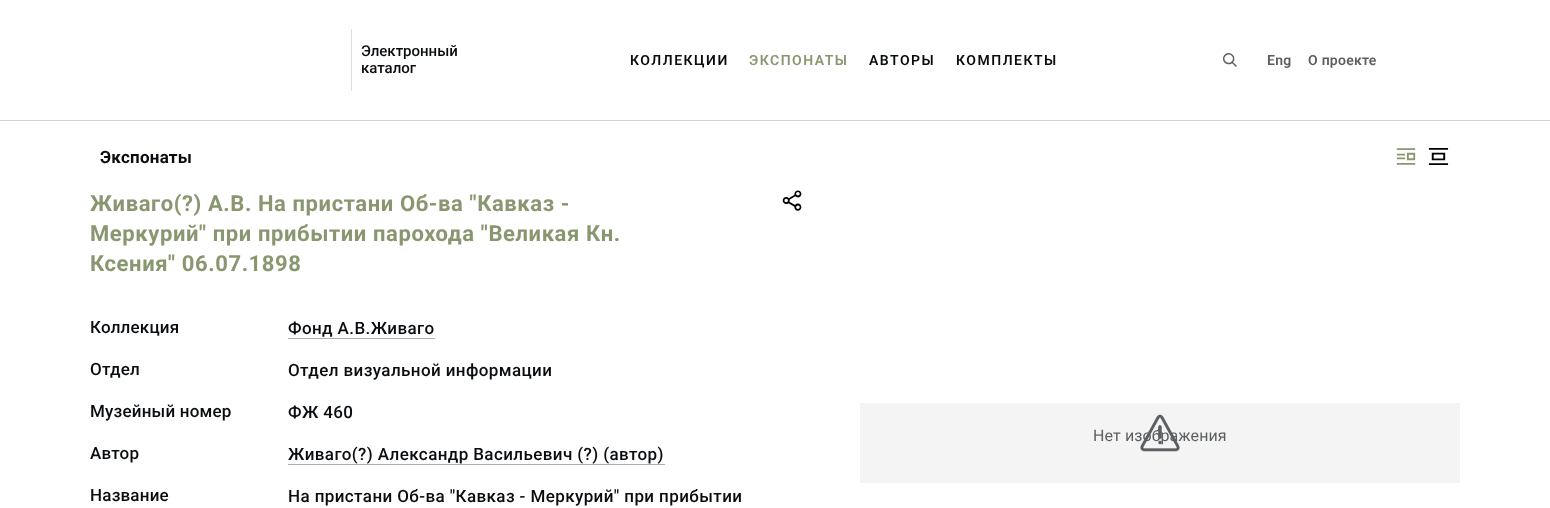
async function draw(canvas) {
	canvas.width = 1550;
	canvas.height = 508;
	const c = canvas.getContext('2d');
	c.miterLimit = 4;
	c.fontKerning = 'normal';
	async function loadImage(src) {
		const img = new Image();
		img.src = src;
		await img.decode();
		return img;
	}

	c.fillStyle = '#fff';
	c.fillRect(0, 0, 1550, 508);
	c.fillStyle = '#d3d3d3';
	c.fillRect(0, 120, 1550, 1);
	c.fillStyle = '#dedede';
	c.fillRect(351, 29, 1, 62);
	c.font = '500 15px Roboto';
	c.fillStyle = '#0a0d10';
	c.fillText('Электронный', 361, 56);
	c.fillText('каталог', 361, 73);
	c.letterSpacing = '1.5px';
	c.font = '600 14px Roboto';
	c.fillText('КОЛЛЕКЦИИ', 630, 65);
	c.fillStyle = '#899770';
	c.fillText('ЭКСПОНАТЫ', 749, 65);
	c.fillStyle = '#0a0d10';
	c.fillText('АВТОРЫ', 869, 65);
	c.fillText('КОМПЛЕКТЫ', 956, 65);
	c.drawImage(await loadImage('img1.png'), 1223, 53, 14, 14);
	c.letterSpacing = '0.25px';
	c.fillStyle = '#5c5f62';
	c.fillText('Eng', 1267, 65);
	c.fillText('О проекте', 1308, 65);
	c.font = 'bold 17px Roboto';
	c.fillStyle = '#0a0d10';
	c.fillText('Экспонаты', 100, 163);
	c.drawImage(await loadImage('img2.png'), 1396, 148, 20, 17);
	c.drawImage(await loadImage('img3.png'), 1428, 148, 21, 17);
	c.letterSpacing = '0.6px';
	c.font = 'bold 22px Roboto';
	c.fillStyle = '#899770';
	for (const [text, x, y] of [
		['Живаго(?) А.В. На пристани Об-ва "Кавказ -', 90, 211],
		['Меркурий" при прибытии парохода "Великая Кн.', 90, 241],
		['Ксения" 06.07.1898', 90, 271],
	]) {
		c.fillText(text, x, y);
	}
	c.drawImage(await loadImage('img4.png'), 782, 190, 20, 21);
	c.letterSpacing = '0.2px';
	c.font = '500 17px Roboto';
	c.fillStyle = '#0a0d10';
	c.fillText('Коллекция', 90, 333);
	c.letterSpacing = '0.4px';
	c.fillText('Фонд А.В.Живаго', 288, 334);
	c.fillStyle = '#acacac';
	c.fillRect(288, 338, 147, 1);
	c.letterSpacing = '0.2px';
	c.fillStyle = '#0a0d10';
	c.fillText('Отдел', 90, 375);
	c.letterSpacing = '0.4px';
	c.fillText('Отдел визуальной информации', 288, 376);
	c.letterSpacing = '0.2px';
	c.fillText('Музейный номер', 90, 417);
	c.letterSpacing = '0.4px';
	c.fillText('ФЖ 460', 288, 418);
	c.letterSpacing = '0.2px';
	c.fillText('Автор', 90, 459);
	c.letterSpacing = '0.4px';
	c.fillText('Живаго(?) Александр Васильевич (?) (автор)', 288, 460);
	c.fillStyle = '#acacac';
	c.fillRect(288, 464, 377, 1);
	c.letterSpacing = '0.2px';
	c.fillStyle = '#0a0d10';
	c.fillText('Название', 90, 501);
	c.letterSpacing = '0.4px';
	c.fillText('На пристани Об-ва "Кавказ - Меркурий" при прибытии', 288, 502);
	c.fillStyle = '#f4f4f5';
	c.fillRect(860, 403, 600, 80);
	c.letterSpacing = '0.1px';
	c.font = '16px Roboto';
	c.fillStyle = '#5c5f62';
	c.fillText('Нет изображения', 1093, 441);
	c.drawImage(await loadImage('img5.png'), 1140, 414, 40, 38);
}

draw(document.querySelector('canvas'));
